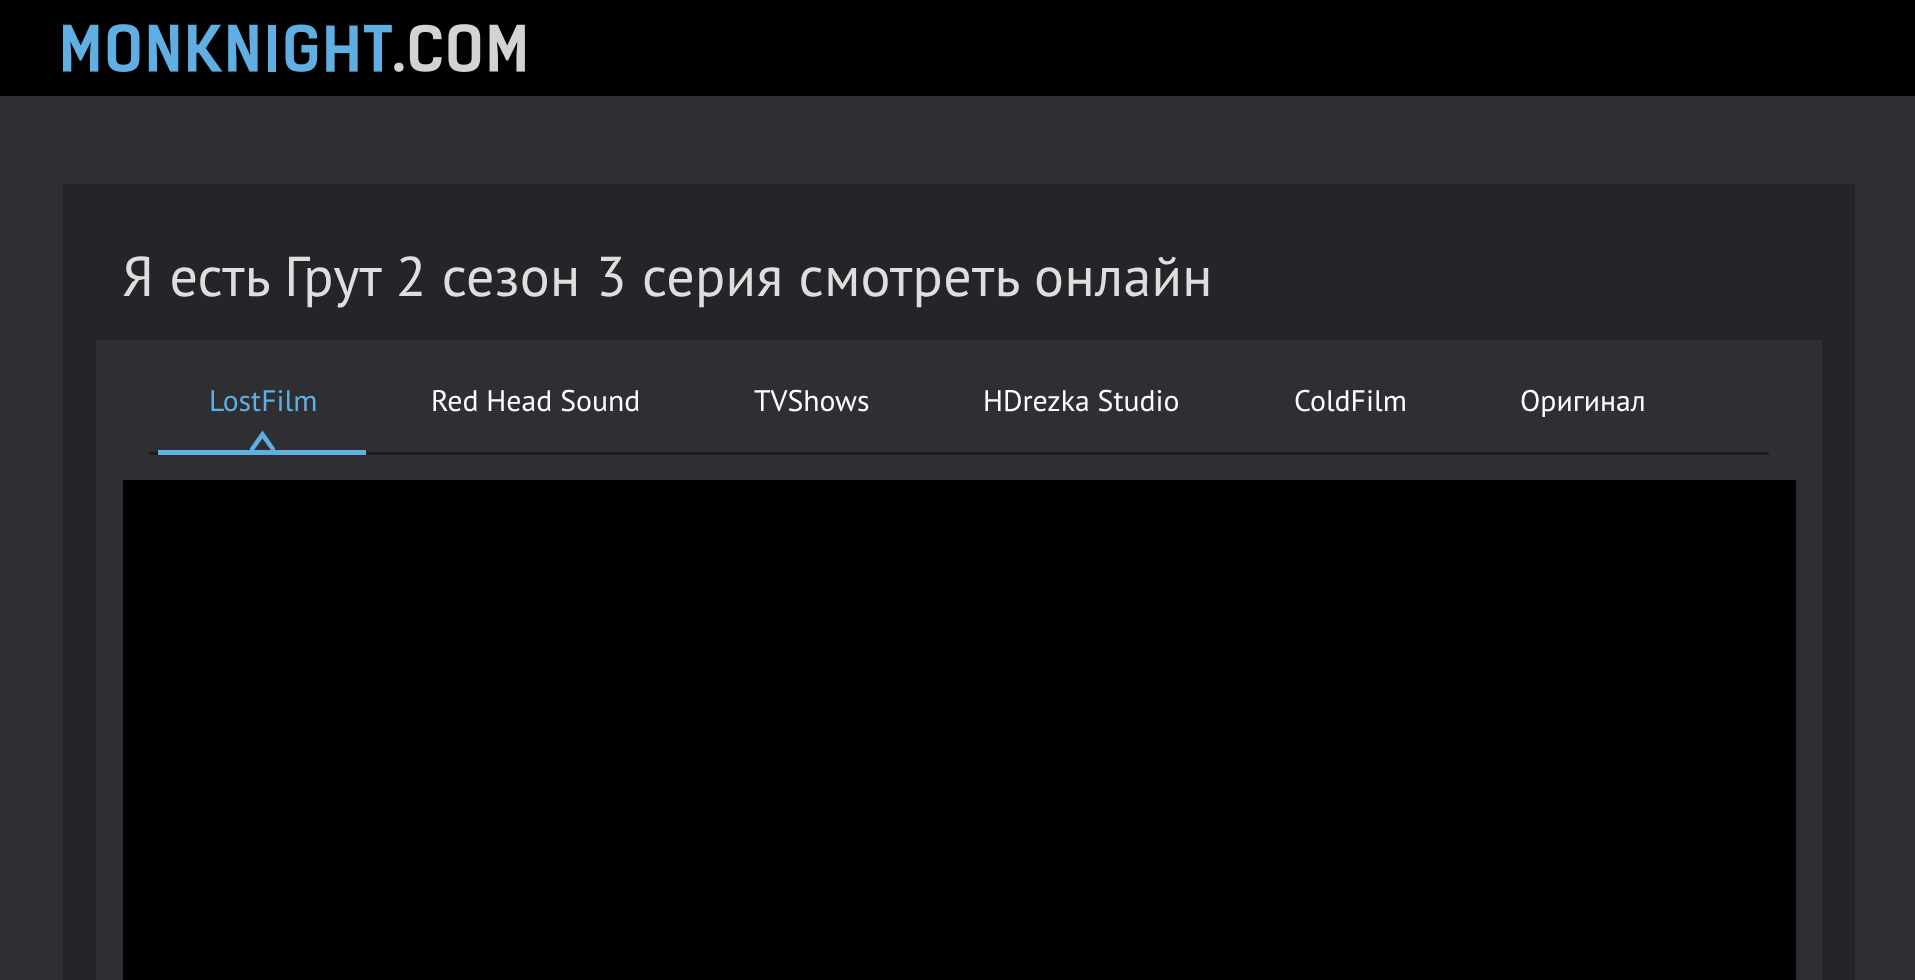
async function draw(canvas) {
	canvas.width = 1915;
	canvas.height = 980;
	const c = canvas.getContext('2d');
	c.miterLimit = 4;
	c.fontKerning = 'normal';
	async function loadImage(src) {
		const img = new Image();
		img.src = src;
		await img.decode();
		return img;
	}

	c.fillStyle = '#2f2f33';
	c.fillRect(0, 0, 1915, 980);
	c.fillStyle = '#000';
	c.fillRect(0, 0, 1915, 96);
	c.drawImage(await loadImage('img1.png'), 63, 24, 462, 48);
	c.fillStyle = '#252529';
	c.fillRect(63, 184, 1792, 796);
	c.letterSpacing = '0.3px';
	c.font = '56px PT Sans';
	c.fillStyle = '#dededf';
	c.fillText('Я есть Грут 2 сезон 3 серия смотреть онлайн', 122, 296);
	c.fillStyle = '#2f2f33';
	c.fillRect(96, 340, 1726, 640);
	c.letterSpacing = '0px';
	c.font = '29.75px PT Sans';
	c.fillStyle = '#5fafe2';
	c.fillText('LostFilm', 209, 411);
	c.fillStyle = '#1c1c1f';
	c.fillRect(149, 452, 1620, 3);
	c.fillStyle = '#5fafe2';
	c.fillRect(158, 450, 208, 5);
	c.beginPath();
	c.moveTo(249.5, 449);
	c.lineTo(262.5, 430.5);
	c.lineTo(275.5, 449);
	c.lineTo(272, 451.5);
	c.lineTo(262.5, 438.5);
	c.lineTo(253, 451.5);
	c.closePath();
	c.fill();
	c.fillStyle = '#fffefe';
	for (const [text, x, y] of [
		['Red Head Sound', 431, 411],
		['TVShows', 754, 411],
		['HDrezka Studio', 983, 411],
		['ColdFilm', 1294, 411],
		['Оригинал', 1520, 411],
	]) {
		c.fillText(text, x, y);
	}
	c.fillStyle = '#000';
	c.fillRect(123, 480, 1673, 500);
}

draw(document.querySelector('canvas'));
